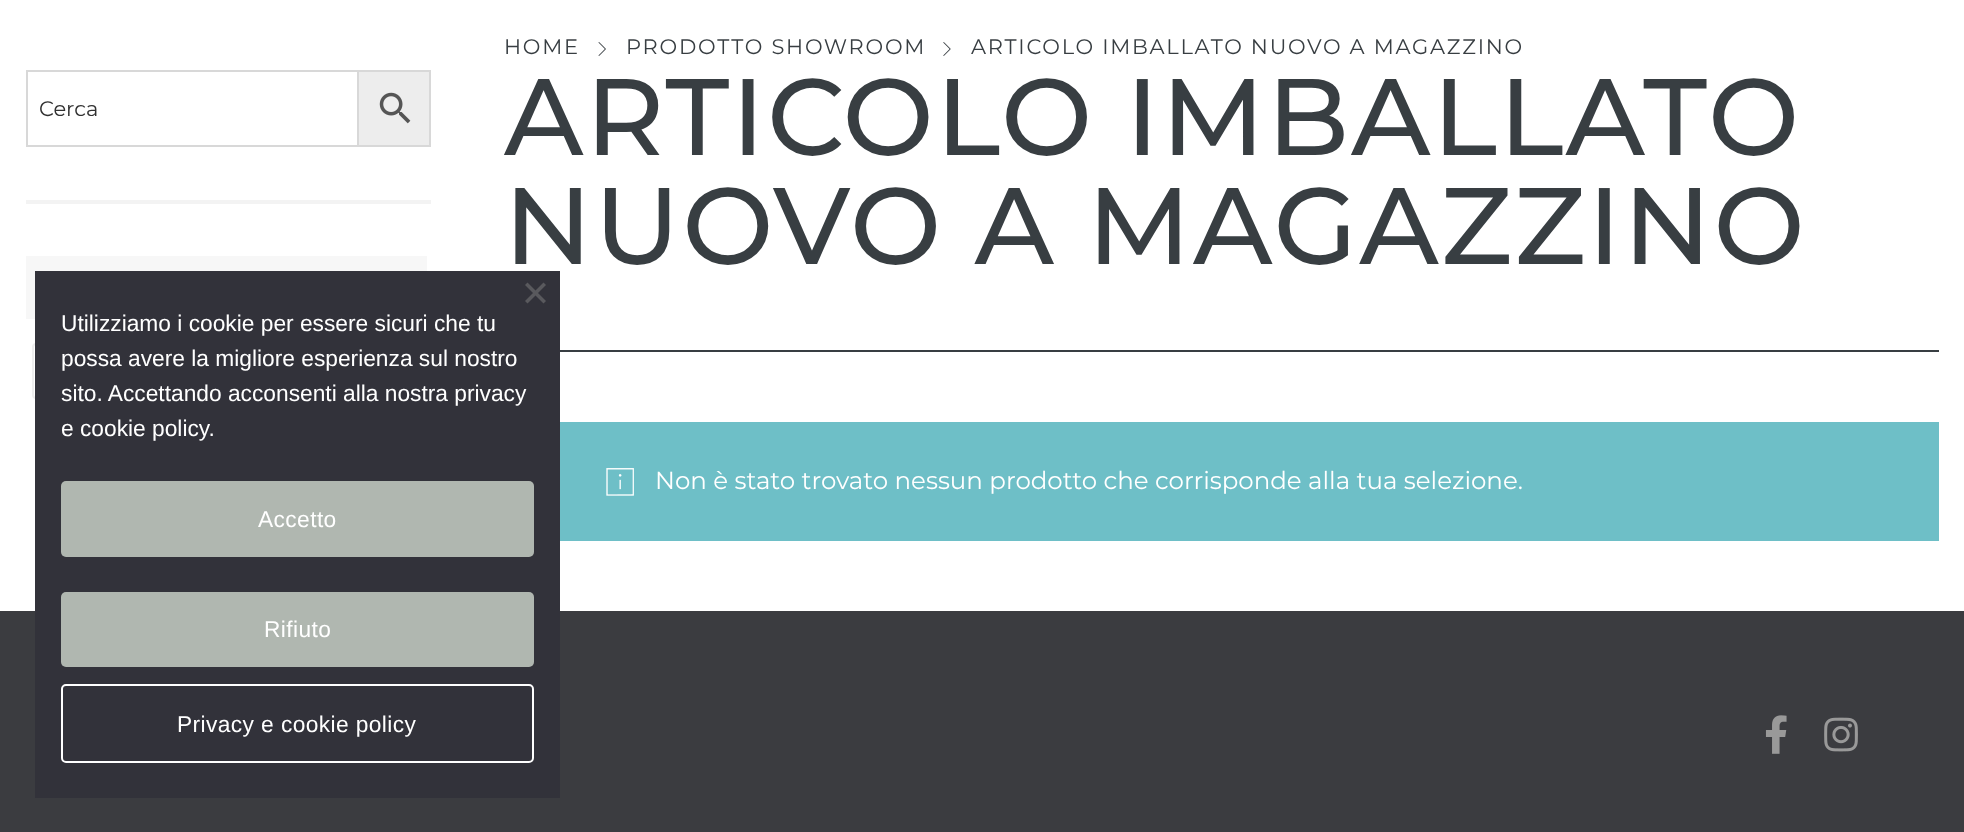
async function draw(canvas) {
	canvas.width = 1964;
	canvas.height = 832;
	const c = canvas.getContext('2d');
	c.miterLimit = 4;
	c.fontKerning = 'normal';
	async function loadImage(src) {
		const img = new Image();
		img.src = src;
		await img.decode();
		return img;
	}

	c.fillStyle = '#fff';
	c.fillRect(0, 0, 1964, 832);
	c.fillStyle = '#f3f3f3';
	c.fillRect(26, 200, 405, 4);
	c.fillStyle = '#ededed';
	c.beginPath();
	c.rect(358, 71, 72, 75);
	c.fill();
	c.strokeStyle = '#d8d8d8';
	c.lineWidth = 2;
	c.stroke();
	c.strokeRect(27, 71, 331, 75);
	c.font = '100 21px Montserrat';
	c.fillStyle = '#313131';
	c.fillText('Cerca', 39, 116);
	c.drawImage(await loadImage('img1.png'), 379, 92, 32, 32);
	c.fillStyle = '#f7f7f7';
	c.fillRect(26, 256, 401, 63);
	c.beginPath();
	c.roundRect(33, 344, 393, 54, 3);
	c.strokeStyle = '#eee';
	c.stroke();
	c.fillStyle = '#383e42';
	c.fillRect(560, 350, 1379, 2);
	c.letterSpacing = '1.75px';
	c.fillText('HOME', 504, 54);
	c.drawImage(await loadImage('img2.png'), 598, 42, 8, 14);
	c.fillText('PRODOTTO SHOWROOM', 626, 54);
	c.drawImage(await loadImage('img3.png'), 943, 42, 8, 14);
	c.fillText('ARTICOLO IMBALLATO NUOVO A MAGAZZINO', 971, 54);
	c.letterSpacing = '2.1px';
	c.font = '500 108.5px Montserrat';
	c.fillText('ARTICOLO IMBALLATO', 504, 155);
	c.fillText('NUOVO A MAGAZZINO', 504, 264);
	c.fillStyle = '#6ebfc7';
	c.fillRect(560, 422, 1379, 119);
	c.drawImage(await loadImage('img4.png'), 606, 468, 28, 28);
	c.letterSpacing = '0px';
	c.font = '100 24.5px Montserrat';
	c.fillStyle = '#fff';
	c.fillText('Non è stato trovato nessun prodotto che corrisponde alla tua selezione.', 655, 489);
	c.fillStyle = '#3b3c40';
	c.fillRect(0, 611, 1964, 221);
	c.drawImage(await loadImage('img5.png'), 1765, 715, 22, 39);
	c.drawImage(await loadImage('img6.png'), 1824, 717, 34, 35);
	c.fillStyle = '#32323a';
	c.fillRect(35, 271, 525, 527);
	c.fillStyle = '#59595d';
	c.beginPath();
	c.moveTo(543.5, 282.5);
	c.lineTo(546, 285);
	c.lineTo(527.5, 303.5);
	c.lineTo(525, 301);
	c.closePath();
	c.fill();
	c.beginPath();
	c.moveTo(525, 285);
	c.lineTo(527.5, 282.5);
	c.lineTo(546, 301);
	c.lineTo(543.5, 303.5);
	c.closePath();
	c.fill();
	c.font = '22.75px Liberation Sans';
	c.fillStyle = '#fff';
	for (const [text, x, y] of [
		['Utilizziamo i cookie per essere sicuri che tu', 61, 331],
		['possa avere la migliore esperienza sul nostro', 61, 366],
		['sito. Accettando acconsenti alla nostra privacy', 61, 401],
		['e cookie policy.', 61, 436],
	]) {
		c.fillText(text, x, y);
	}
	c.fillStyle = '#b0b7b0';
	c.beginPath();
	c.roundRect(61, 481, 473, 76, 5);
	c.fill();
	c.letterSpacing = '0.4px';
	c.fillStyle = '#fff';
	c.fillText('Accetto', 258, 527);
	c.fillStyle = '#b0b7b0';
	c.beginPath();
	c.roundRect(61, 592, 473, 75, 5);
	c.fill();
	c.fillStyle = '#fff';
	c.fillText('Rifiuto', 264, 637);
	c.beginPath();
	c.roundRect(62, 685, 471, 77, 4);
	c.strokeStyle = '#fff';
	c.stroke();
	c.fillText('Privacy e cookie policy', 177, 732);
}

draw(document.querySelector('canvas'));
